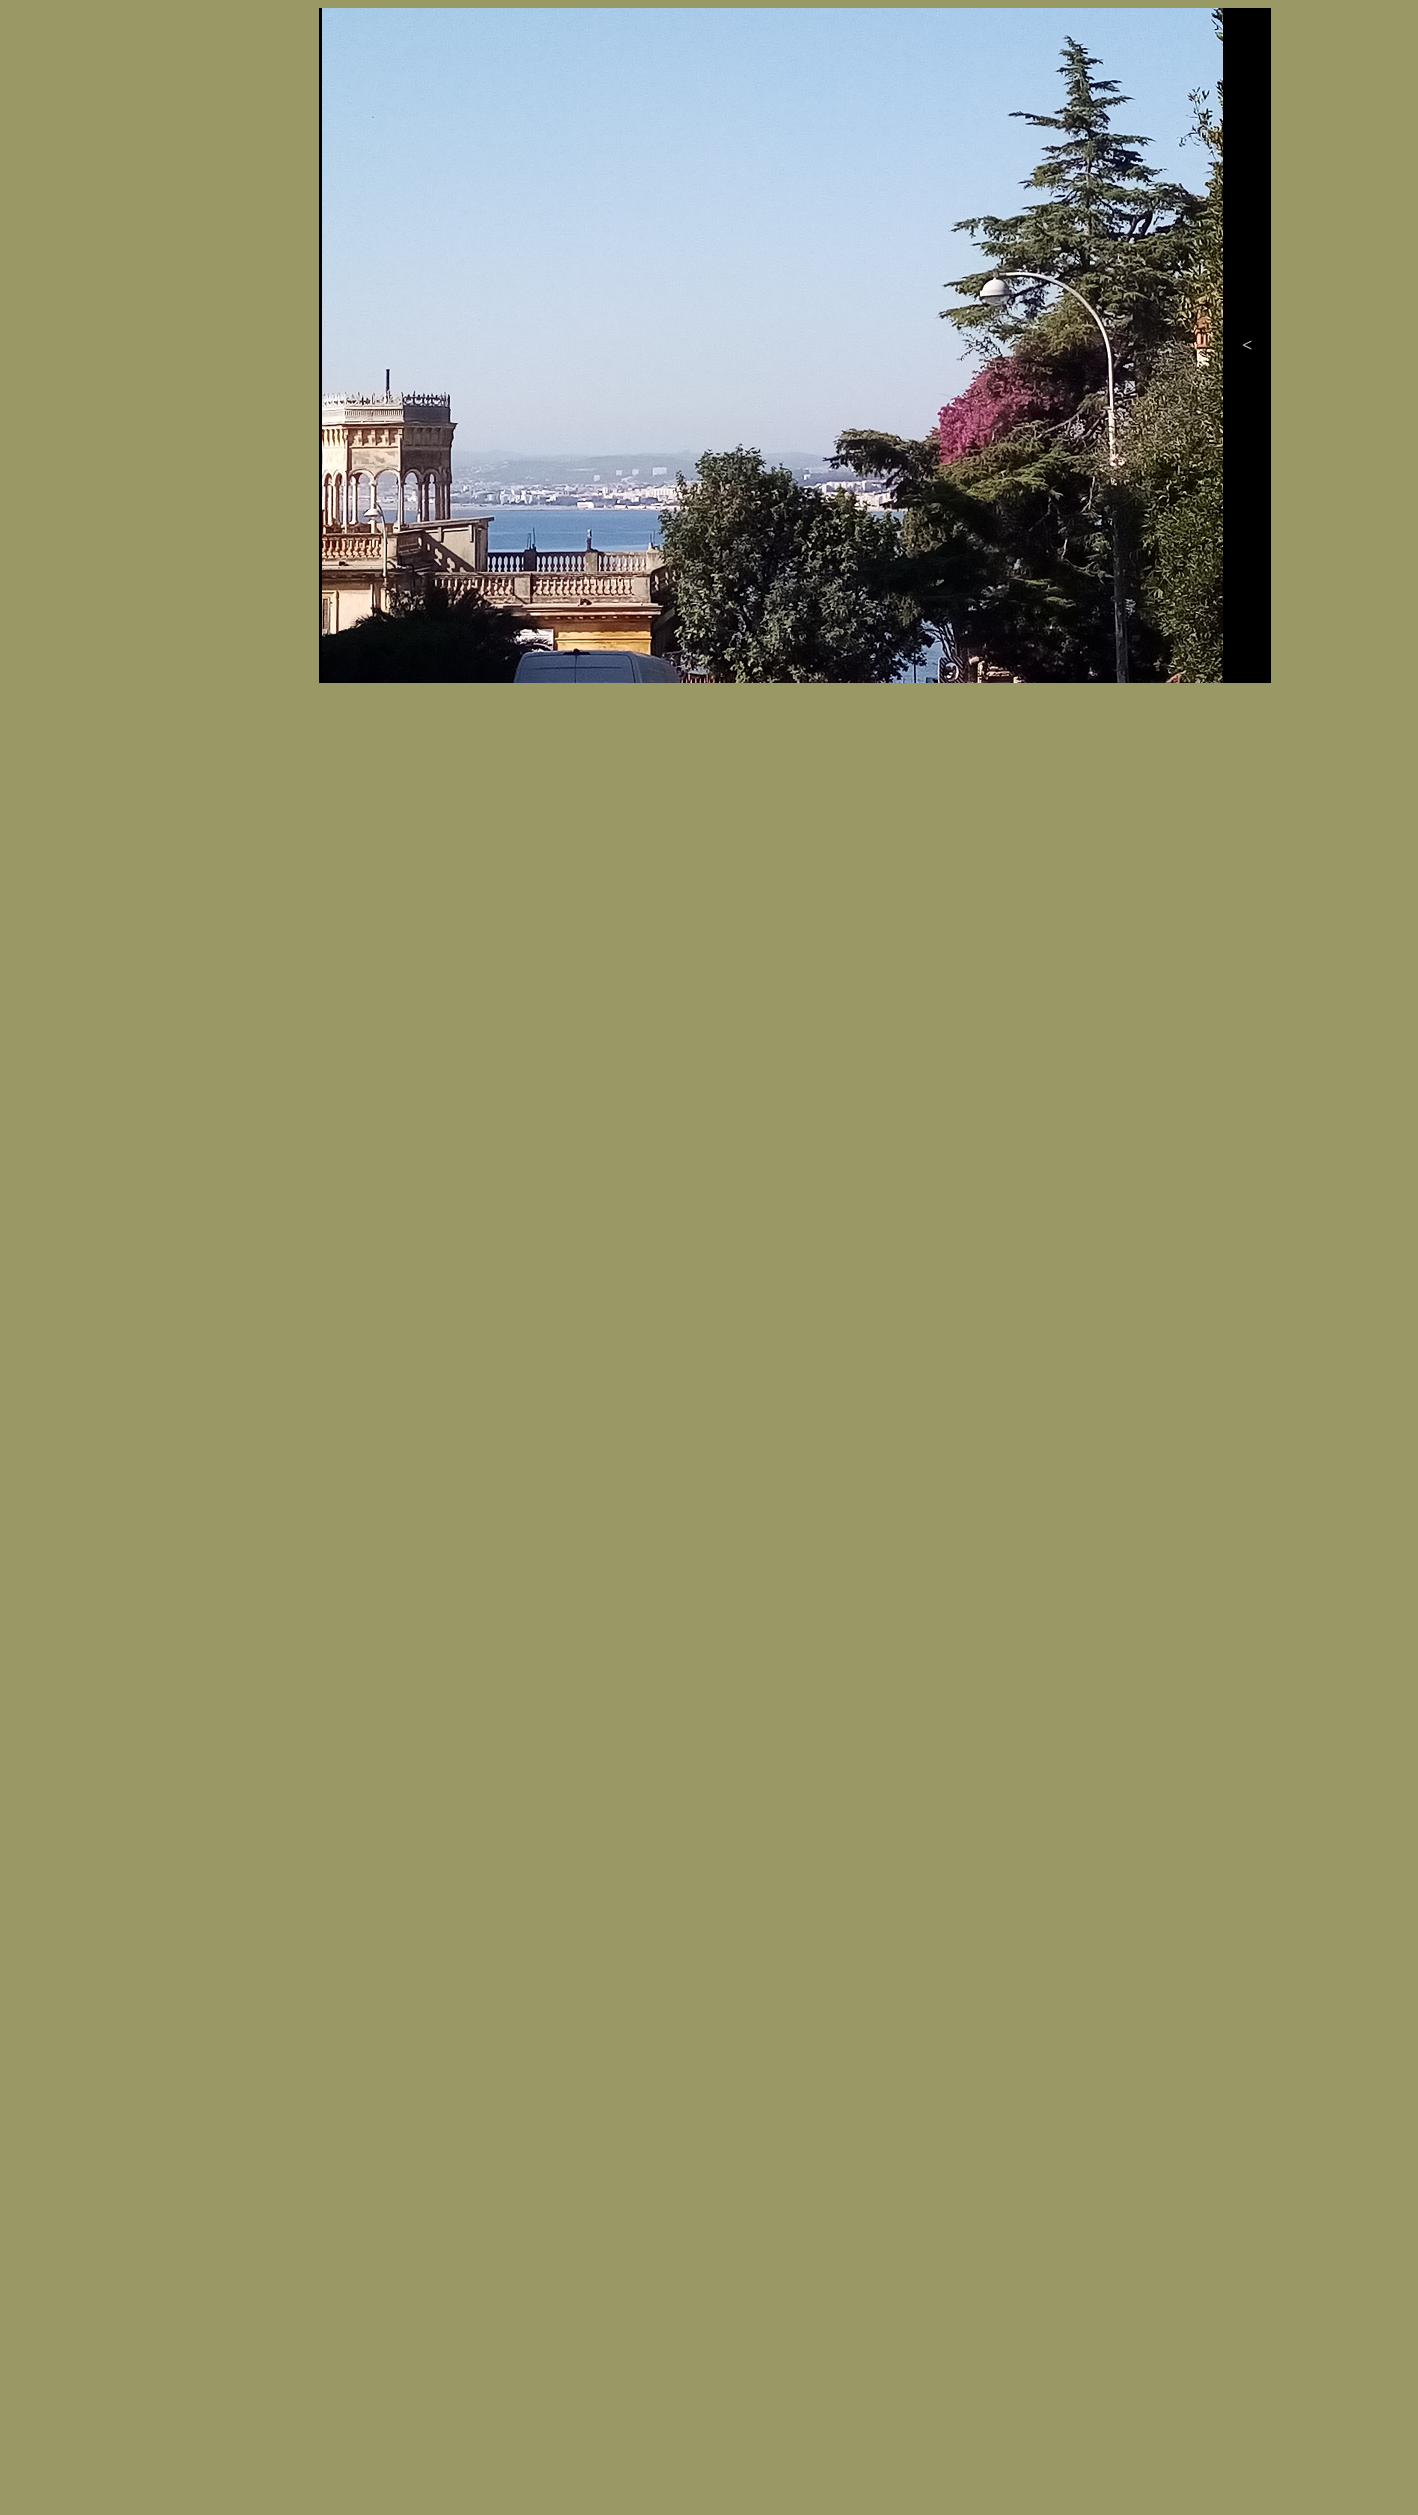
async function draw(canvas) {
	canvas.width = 1418;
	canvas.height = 2515;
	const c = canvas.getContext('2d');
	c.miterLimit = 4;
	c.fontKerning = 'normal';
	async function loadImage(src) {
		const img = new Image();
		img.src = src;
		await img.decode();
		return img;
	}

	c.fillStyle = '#996';
	c.fillRect(0, 0, 1418, 2515);
	c.fillStyle = '#000';
	c.fillRect(319, 8, 3, 675);
	c.drawImage(await loadImage('img1.png'), 322, 8, 901, 675);
	c.fillRect(1223, 8, 48, 675);
	c.font = 'bold 18px Liberation Serif';
	c.fillStyle = '#c0c0c0';
	c.fillText('<', 1242, 351);
}

draw(document.querySelector('canvas'));
